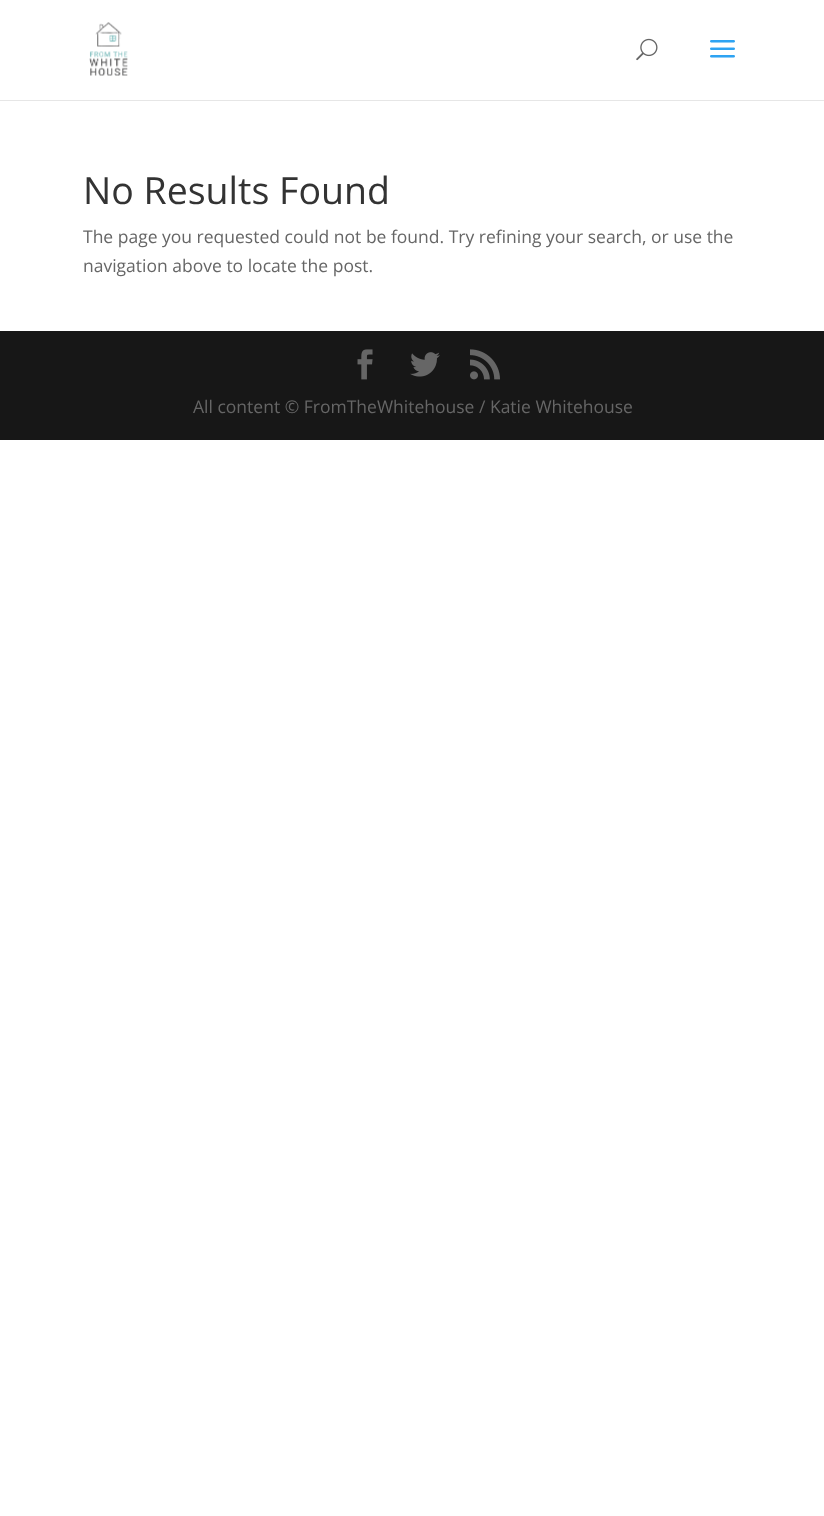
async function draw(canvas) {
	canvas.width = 824;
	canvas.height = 1516;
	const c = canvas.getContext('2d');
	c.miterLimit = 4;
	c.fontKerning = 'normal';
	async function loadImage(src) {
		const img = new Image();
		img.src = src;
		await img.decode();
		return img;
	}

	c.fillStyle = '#fff';
	c.fillRect(0, 0, 824, 1516);
	c.fillStyle = '#e6e6e6';
	c.fillRect(0, 100, 824, 1);
	c.drawImage(await loadImage('img1.png'), 89, 22, 39, 54);
	c.drawImage(await loadImage('img2.png'), 636, 38, 22, 23);
	c.drawImage(await loadImage('img3.png'), 710, 40, 25, 18);
	c.font = '37.5px Open Sans';
	c.fillStyle = '#333';
	c.fillText('No Results Found', 83, 204);
	c.font = '17.5px Open Sans';
	c.fillStyle = '#666';
	c.fillText('The page you requested could not be found. Try refining your search, or use the', 83, 243);
	c.fillText('navigation above to locate the post.', 83, 272);
	c.fillStyle = '#171717';
	c.fillRect(0, 331, 824, 109);
	c.drawImage(await loadImage('img4.png'), 357, 349, 16, 31);
	c.drawImage(await loadImage('img5.png'), 410, 352, 30, 25);
	c.drawImage(await loadImage('img6.png'), 470, 349, 30, 31);
	c.fillStyle = '#666';
	c.fillText('All content © FromTheWhitehouse / Katie Whitehouse', 193, 413);
}

draw(document.querySelector('canvas'));
